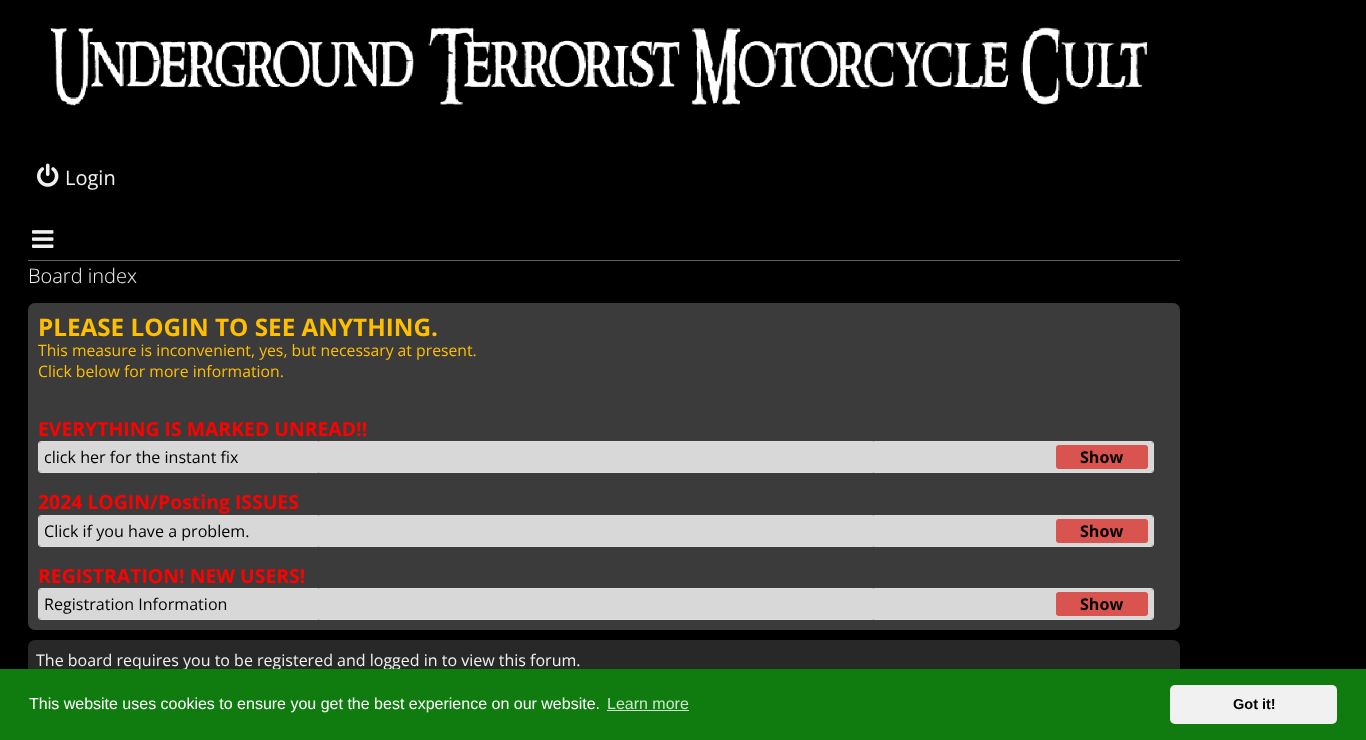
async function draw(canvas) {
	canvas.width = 1366;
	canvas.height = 740;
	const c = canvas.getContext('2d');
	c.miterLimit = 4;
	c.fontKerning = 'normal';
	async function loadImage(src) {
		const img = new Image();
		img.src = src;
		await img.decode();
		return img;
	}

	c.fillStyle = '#000';
	c.fillRect(0, 0, 1366, 740);
	c.drawImage(await loadImage('img1.png'), 49, 27, 1099, 79);
	c.drawImage(await loadImage('img2.png'), 37, 163, 22, 24);
	c.font = '20px Open Sans';
	c.fillStyle = '#f1f1f1';
	c.fillText('Login', 65, 185);
	c.drawImage(await loadImage('img3.png'), 32, 230, 22, 18);
	c.fillStyle = '#5f5f5f';
	c.fillRect(28, 260, 1152, 1);
	c.font = '300 20px Open Sans';
	c.fillStyle = '#f1f1f1';
	c.fillText('Board index', 28, 283);
	c.fillStyle = '#3b3b3b';
	c.beginPath();
	c.roundRect(28, 303, 1152, 327, 7);
	c.fill();
	c.font = 'bold 24.25px Open Sans';
	c.fillStyle = '#ffbf00';
	c.fillText('PLEASE LOGIN TO SEE ANYTHING.', 38, 336);
	c.font = '15.75px Open Sans';
	c.fillText('This measure is inconvenient, yes, but necessary at present.', 38, 356);
	c.fillText('Click below for more information.', 38, 377);
	c.font = 'bold 19.4px Open Sans';
	c.fillStyle = '#f00';
	c.fillText('EVERYTHING IS MARKED UNREAD!!', 38, 436);
	c.beginPath();
	c.roundRect(38.5, 441.5, 1115, 31, 2.5);
	c.strokeStyle = '#ddd';
	c.stroke();
	c.fillStyle = '#d8d8d8';
	c.beginPath();
	c.roundRect(39, 442, 1114, 30, 2);
	c.fill();
	c.font = '16.1px Open Sans';
	c.fillStyle = '#000';
	c.fillText('click her for the instant fix', 44, 463);
	c.fillStyle = '#d9534f';
	c.beginPath();
	c.roundRect(1056, 445, 92, 24, 3);
	c.fill();
	c.font = 'bold 16.1px Open Sans';
	c.fillStyle = '#000';
	c.fillText('Show', 1080, 463);
	c.font = 'bold 19.4px Open Sans';
	c.fillStyle = '#f00';
	c.fillText('2024 LOGIN/Posting ISSUES', 38, 509);
	c.beginPath();
	c.roundRect(38.5, 515.5, 1115, 31, 2.5);
	c.stroke();
	c.fillStyle = '#d8d8d8';
	c.beginPath();
	c.roundRect(39, 516, 1114, 30, 2);
	c.fill();
	c.font = '16.1px Open Sans';
	c.fillStyle = '#000';
	c.fillText('Click if you have a problem.', 44, 537);
	c.fillStyle = '#d9534f';
	c.beginPath();
	c.roundRect(1056, 519, 92, 24, 3);
	c.fill();
	c.font = 'bold 16.1px Open Sans';
	c.fillStyle = '#000';
	c.fillText('Show', 1080, 537);
	c.font = 'bold 19.4px Open Sans';
	c.fillStyle = '#f00';
	c.fillText('REGISTRATION! NEW USERS!', 38, 583);
	c.beginPath();
	c.roundRect(38.5, 588.5, 1115, 31, 2.5);
	c.stroke();
	c.fillStyle = '#d8d8d8';
	c.beginPath();
	c.roundRect(39, 589, 1114, 30, 2);
	c.fill();
	c.font = '16.1px Open Sans';
	c.fillStyle = '#000';
	c.fillText('Registration Information', 44, 610);
	c.fillStyle = '#d9534f';
	c.beginPath();
	c.roundRect(1056, 592, 92, 24, 3);
	c.fill();
	c.font = 'bold 16.1px Open Sans';
	c.fillStyle = '#000';
	c.fillText('Show', 1080, 610);
	c.fillStyle = '#282828';
	c.beginPath();
	c.roundRect(28, 640, 1152, 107, 7);
	c.fill();
	c.font = '16px Open Sans';
	c.fillStyle = '#f1f1f1';
	c.fillText('The board requires you to be registered and logged in to view this forum.', 36, 666);
	c.fillStyle = '#107c10';
	c.fillRect(0, 669, 1366, 71);
	c.font = '16px Liberation Sans';
	c.fillStyle = '#fff';
	c.fillText('This website uses cookies to ensure you get the best experience on our website.', 29, 709);
	c.fillStyle = '#cfe5cf';
	c.fillText('Learn more', 607, 709);
	c.fillRect(607, 710, 82, 1);
	c.fillStyle = '#f1f1f1';
	c.beginPath();
	c.roundRect(1170, 685, 167, 39, 5);
	c.fill();
	c.font = 'bold 14.5px Liberation Sans';
	c.fillStyle = '#000';
	c.fillText('Got it!', 1233, 709);
}

draw(document.querySelector('canvas'));
